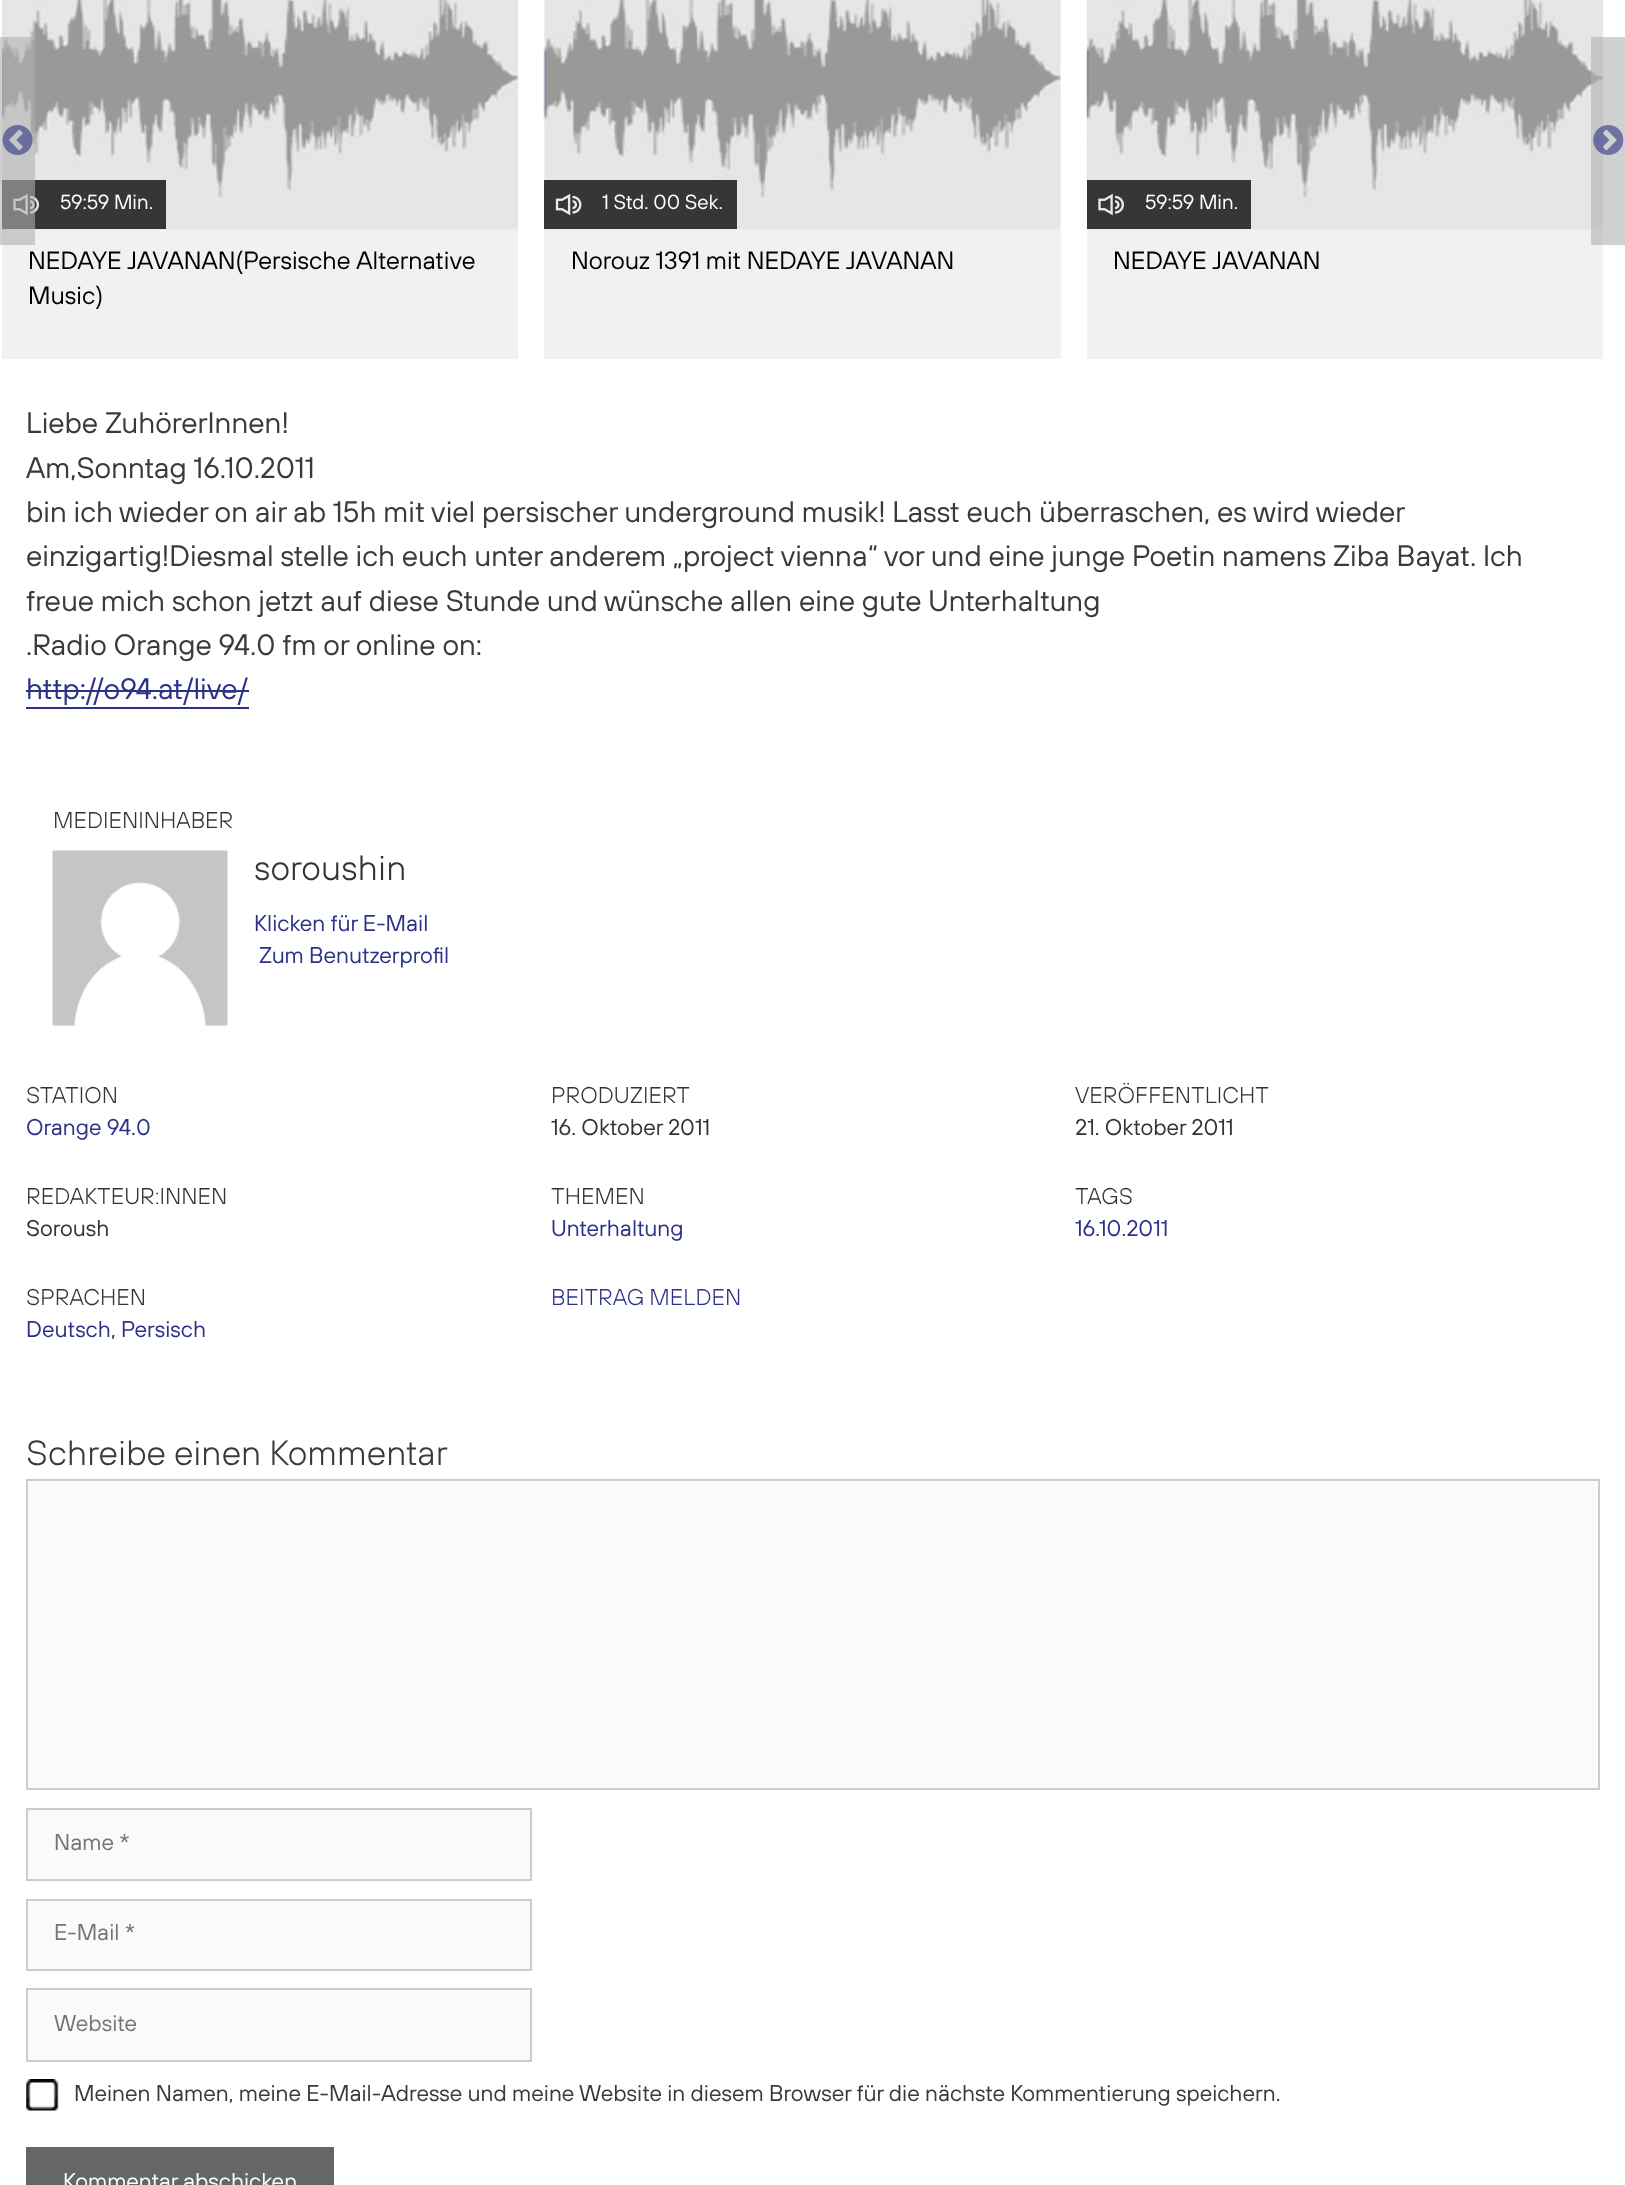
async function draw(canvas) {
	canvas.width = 1625;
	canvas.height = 2185;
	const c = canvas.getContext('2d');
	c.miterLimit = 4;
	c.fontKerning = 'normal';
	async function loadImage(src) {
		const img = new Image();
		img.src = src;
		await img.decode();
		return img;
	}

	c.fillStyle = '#fff';
	c.fillRect(0, 0, 1625, 2185);
	c.fillStyle = '#f1f1f1';
	c.fillRect(2, 229, 516, 130);
	c.drawImage(await loadImage('img2.png'), 2, 0, 517, 230);
	c.fillStyle = '#363636';
	c.fillRect(2, 180, 164, 49);
	c.drawImage(await loadImage('img3.png'), 13, 193, 26, 23);
	c.fillStyle = '#b0b0b099';
	c.fillRect(0, 37, 35, 208);
	c.drawImage(await loadImage('img1.png'), 2, 125, 31, 30);
	c.font = '20.5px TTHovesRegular';
	c.fillStyle = '#fff';
	c.fillText('59:59 Min.', 60, 209);
	c.font = '25px TTHovesRegular';
	c.fillStyle = '#000';
	c.fillText('NEDAYE JAVANAN(Persische Alternative', 28, 269);
	c.fillText('Music)', 28, 304);
	c.fillStyle = '#f1f1f1';
	c.fillRect(544, 229, 517, 130);
	c.drawImage(await loadImage('img4.png'), 543, 0, 518, 230);
	c.fillStyle = '#222222e6';
	c.fillRect(544, 180, 49, 49);
	c.drawImage(await loadImage('img5.png'), 555, 193, 27, 23);
	c.fillStyle = '#363636';
	c.fillRect(593, 180, 144, 49);
	c.font = '20.5px TTHovesRegular';
	c.fillStyle = '#fff';
	c.fillText('1 Std. 00 Sek.', 602, 209);
	c.font = '25px TTHovesRegular';
	c.fillStyle = '#000';
	c.fillText('Norouz 1391 mit NEDAYE JAVANAN', 571, 269);
	c.fillStyle = '#f1f1f1';
	c.fillRect(1087, 229, 516, 130);
	c.drawImage(await loadImage('img6.png'), 1086, 0, 518, 230);
	c.fillStyle = '#363636';
	c.fillRect(1087, 180, 164, 49);
	c.drawImage(await loadImage('img3.png'), 1098, 193, 26, 23);
	c.font = '20.5px TTHovesRegular';
	c.fillStyle = '#fff';
	c.fillText('59:59 Min.', 1145, 209);
	c.font = '25px TTHovesRegular';
	c.fillStyle = '#000';
	c.fillText('NEDAYE JAVANAN', 1113, 269);
	c.fillStyle = '#b0b0b099';
	c.fillRect(1591, 37, 34, 208);
	c.drawImage(await loadImage('img7.png'), 1593, 125, 31, 30);
	c.font = '29.57px TTHovesRegular';
	c.fillStyle = '#3a3a3a';
	for (const [text, x, y] of [
		['Liebe ZuhörerInnen!', 26, 433],
		['Am,Sonntag 16.10.2011', 26, 478],
		['bin ich wieder on air ab 15h mit viel persischer underground musik! Lasst euch überraschen, es wird wieder', 26, 522],
		['einzigartig!Diesmal stelle ich euch unter anderem „project vienna“ vor und eine junge Poetin namens Ziba Bayat. Ich', 26, 566],
		['freue mich schon jetzt auf diese Stunde und wünsche allen eine gute Unterhaltung', 26, 611],
		['.Radio Orange 94.0 fm or online on:', 26, 655],
	]) {
		c.fillText(text, x, y);
	}
	c.fillStyle = '#2b3287';
	c.fillText('http://o94.at/live/', 26, 699);
	c.fillRect(26, 707, 223, 2);
	c.fillRect(26, 690, 223, 2);
	c.font = '22.75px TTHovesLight';
	c.fillStyle = '#333';
	c.fillText('MEDIENINHABER', 53, 828);
	c.drawImage(await loadImage('img8.png'), 52, 850, 176, 176);
	c.font = '35px TTHovesLight';
	c.fillText('soroushin', 254, 880);
	c.font = '22.75px TTHovesRegular';
	c.fillStyle = '#2b3287';
	c.fillText('Klicken für E-Mail', 254, 931);
	c.fillText('Zum Benutzerprofil', 259, 963);
	c.font = '22.75px TTHovesLight';
	c.fillStyle = '#333';
	c.fillText('STATION', 26, 1103);
	c.font = '22.75px TTHovesRegular';
	c.fillStyle = '#2b3287';
	c.fillText('Orange 94.0', 26, 1135);
	c.font = '22.75px TTHovesLight';
	c.fillStyle = '#333';
	c.fillText('PRODUZIERT', 551, 1103);
	c.font = '22.75px TTHovesRegular';
	c.fillText('16. Oktober 2011', 551, 1135);
	c.font = '22.75px TTHovesLight';
	c.fillText('VERÖFFENTLICHT', 1075, 1103);
	c.font = '22.75px TTHovesRegular';
	c.fillText('21. Oktober 2011', 1075, 1135);
	c.font = '22.75px TTHovesLight';
	c.fillText('REDAKTEUR:INNEN', 26, 1204);
	c.font = '22.75px TTHovesRegular';
	c.fillText('Soroush', 26, 1236);
	c.font = '22.75px TTHovesLight';
	c.fillText('THEMEN', 551, 1204);
	c.font = '22.75px TTHovesRegular';
	c.fillStyle = '#2b3287';
	c.fillText('Unterhaltung', 551, 1236);
	c.font = '22.75px TTHovesLight';
	c.fillStyle = '#333';
	c.fillText('TAGS', 1075, 1204);
	c.font = '22.75px TTHovesRegular';
	c.fillStyle = '#2b3287';
	c.fillText('16.10.2011', 1075, 1236);
	c.font = '22.75px TTHovesLight';
	c.fillStyle = '#333';
	c.fillText('SPRACHEN', 26, 1305);
	c.font = '22.75px TTHovesRegular';
	c.fillStyle = '#2b3287';
	c.fillText('Deutsch', 26, 1337);
	c.fillStyle = '#333';
	c.fillText(',', 111, 1337);
	c.fillStyle = '#2b3287';
	c.fillText('Persisch', 121, 1337);
	c.font = '22.75px TTHovesLight';
	c.fillText('BEITRAG MELDEN', 551, 1305);
	c.font = '35px TTHovesLight';
	c.fillStyle = '#3a3a3a';
	c.fillText('Schreibe einen Kommentar', 26, 1465);
	c.fillStyle = '#fafafa';
	c.beginPath();
	c.rect(27, 1480, 1572, 309);
	c.fill();
	c.strokeStyle = '#ccc';
	c.lineWidth = 2;
	c.stroke();
	c.beginPath();
	c.rect(27, 1809, 504, 71);
	c.fill();
	c.stroke();
	c.font = '22.75px TTHovesRegular';
	c.fillStyle = '#757575';
	c.fillText('Name *', 54, 1850);
	c.fillStyle = '#fafafa';
	c.beginPath();
	c.rect(27, 1900, 504, 70);
	c.fill();
	c.stroke();
	c.fillStyle = '#757575';
	c.fillText('E-Mail *', 54, 1940);
	c.fillStyle = '#fafafa';
	c.beginPath();
	c.rect(27, 1989, 504, 72);
	c.fill();
	c.stroke();
	c.fillStyle = '#757575';
	c.fillText('Website', 54, 2031);
	c.drawImage(await loadImage('img9.png'), 26, 2079, 33, 32);
	c.fillStyle = '#3a3a3a';
	c.fillText('Meinen Namen, meine E-Mail-Adresse und meine Website in diesem Browser für die nächste Kommentierung speichern.', 74, 2101);
	c.fillStyle = '#666';
	c.fillRect(26, 2147, 308, 38);
	c.fillStyle = '#fff';
	c.fillText('Kommentar abschicken', 63, 2189);
}

draw(document.querySelector('canvas'));
